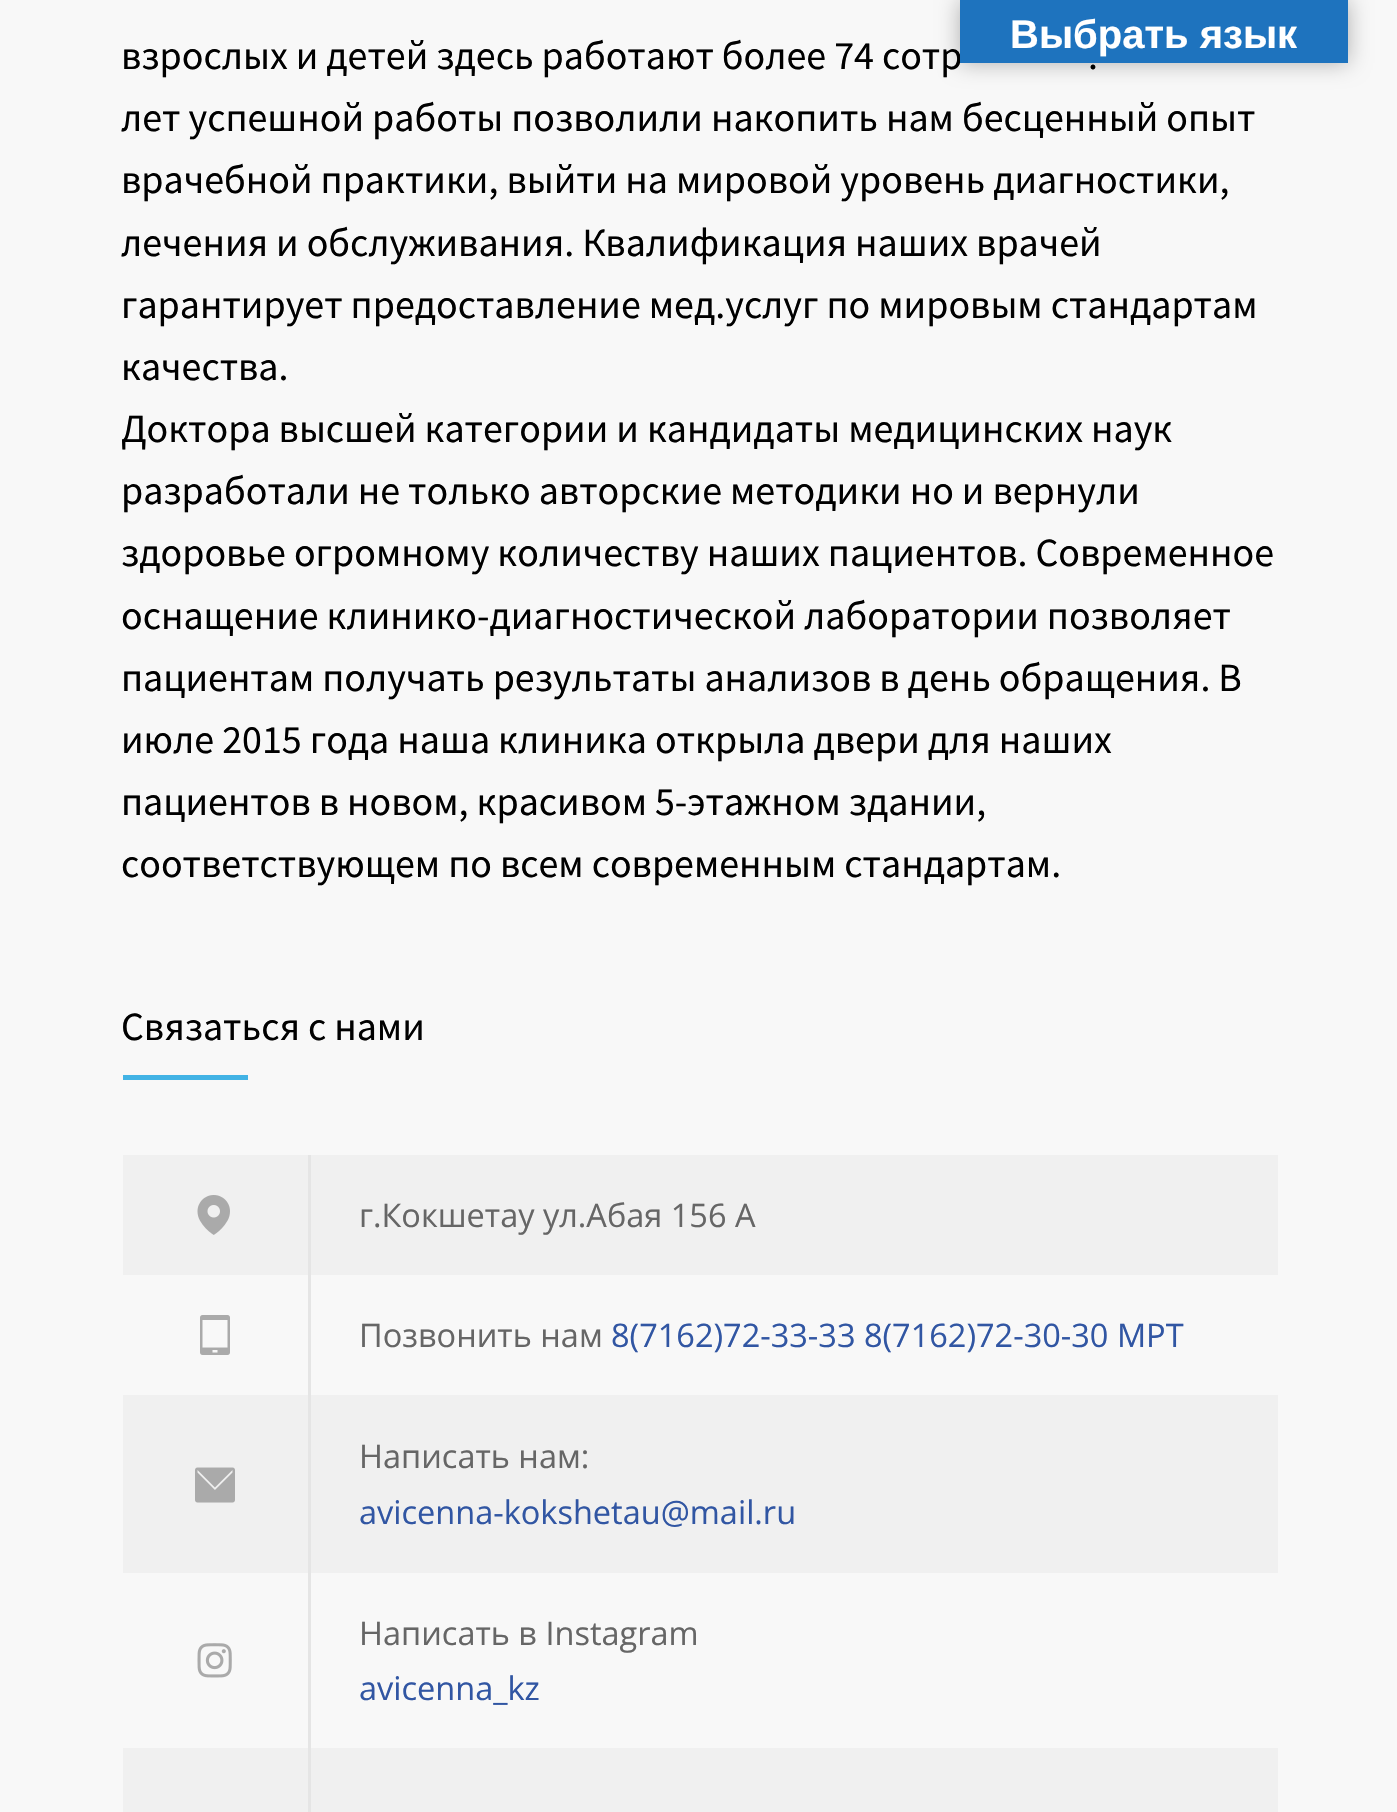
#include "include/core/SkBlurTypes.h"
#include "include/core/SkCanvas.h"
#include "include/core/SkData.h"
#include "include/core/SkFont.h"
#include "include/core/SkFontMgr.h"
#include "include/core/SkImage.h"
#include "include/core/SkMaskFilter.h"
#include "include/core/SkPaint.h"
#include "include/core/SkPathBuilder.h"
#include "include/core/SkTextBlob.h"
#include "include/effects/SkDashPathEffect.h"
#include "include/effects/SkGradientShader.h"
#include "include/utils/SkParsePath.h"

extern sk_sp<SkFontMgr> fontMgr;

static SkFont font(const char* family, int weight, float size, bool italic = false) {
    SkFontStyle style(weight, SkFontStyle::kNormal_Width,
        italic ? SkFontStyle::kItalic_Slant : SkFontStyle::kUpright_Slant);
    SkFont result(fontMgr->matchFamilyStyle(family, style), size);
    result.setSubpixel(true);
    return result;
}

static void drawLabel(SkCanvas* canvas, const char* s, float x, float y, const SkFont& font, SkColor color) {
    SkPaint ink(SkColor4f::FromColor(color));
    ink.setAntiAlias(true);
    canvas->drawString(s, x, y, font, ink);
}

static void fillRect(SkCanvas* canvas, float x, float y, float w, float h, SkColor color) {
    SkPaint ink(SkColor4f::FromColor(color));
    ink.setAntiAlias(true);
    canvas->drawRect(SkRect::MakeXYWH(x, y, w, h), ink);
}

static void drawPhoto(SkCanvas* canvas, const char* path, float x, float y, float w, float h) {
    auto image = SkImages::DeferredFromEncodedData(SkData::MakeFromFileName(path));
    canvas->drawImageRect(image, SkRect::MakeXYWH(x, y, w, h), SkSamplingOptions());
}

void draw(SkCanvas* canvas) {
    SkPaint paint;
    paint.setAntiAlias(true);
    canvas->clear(0xFFF8F8F8);
    paint.setColor(0x4D000000);
    paint.setMaskFilter(SkMaskFilter::MakeBlur(kNormal_SkBlurStyle, 11));
    canvas->drawRect(SkRect::MakeXYWH(960, 0, 388, 63), paint);
    paint.setMaskFilter(nullptr);
    SkFont font1 = font("Source Sans Pro", 400, 40);
    drawLabel(canvas, "взрослых и детей здесь работают более 74 сотр", 121, 69, font1, 0xFF000000);
    fillRect(canvas, 960, 0, 388, 63, 0xFF1E73BE);
    SkFont font2 = font("Liberation Sans", 700, 40);
    drawLabel(canvas, "Выбрать язык", 1010, 48, font2, 0xFFFFFFFF);
    drawLabel(canvas, ".", 1088, 69, font1, 0xFF000000);
    drawLabel(canvas, "лет успешной работы позволили накопить нам бесценный опыт", 121, 131, font1, 0xFF000000);
    drawLabel(canvas, "врачебной практики, выйти на мировой уровень диагностики,", 121, 193, font1, 0xFF000000);
    drawLabel(canvas, "лечения и обслуживания. Квалификация наших врачей", 121, 256, font1, 0xFF000000);
    drawLabel(canvas, "гарантирует предоставление мед.услуг по мировым стандартам", 121, 318, font1, 0xFF000000);
    drawLabel(canvas, "качества.", 121, 380, font1, 0xFF000000);
    drawLabel(canvas, "Доктора высшей категории и кандидаты медицинских наук", 121, 442, font1, 0xFF000000);
    drawLabel(canvas, "разработали не только авторские методики но и вернули", 121, 504, font1, 0xFF000000);
    drawLabel(canvas, "здоровье огромному количеству наших пациентов. Современное", 121, 566, font1, 0xFF000000);
    drawLabel(canvas, "оснащение клинико-диагностической лаборатории позволяет", 121, 629, font1, 0xFF000000);
    drawLabel(canvas, "пациентам получать результаты анализов в день обращения. В", 121, 691, font1, 0xFF000000);
    drawLabel(canvas, "июле 2015 года наша клиника открыла двери для наших", 121, 753, font1, 0xFF000000);
    drawLabel(canvas, "пациентов в новом, красивом 5-этажном здании,", 121, 815, font1, 0xFF000000);
    drawLabel(canvas, "соответствующем по всем современным стандартам.", 121, 877, font1, 0xFF000000);
    drawLabel(canvas, "Связаться с нами", 121, 1040, font1, 0xFF000000);
    fillRect(canvas, 123, 1075, 125, 5, 0xFF42B3E5);
    fillRect(canvas, 123, 1155, 1155, 120, 0xFFF0F0F0);
    fillRect(canvas, 308, 1155, 3, 240, 0xFFE5E5E5);
    drawPhoto(canvas, "assets/img1.png", 197, 1195, 33, 40);
    SkFont font3 = font("Open Sans", 400, 32.5f);
    drawLabel(canvas, "г.Кокшетау ул.Абая 156 А", 359, 1227, font3, 0xFF666666);
    drawPhoto(canvas, "assets/img2.png", 200, 1315, 30, 40);
    drawLabel(canvas, "Позвонить нам", 359, 1347, font3, 0xFF666666);
    drawLabel(canvas, "8(7162)72-33-33 8(7162)72-30-30 МРТ", 611, 1347, font3, 0xFF3156A3);
    fillRect(canvas, 123, 1395, 1155, 178, 0xFFF0F0F0);
    fillRect(canvas, 308, 1395, 3, 353, 0xFFE5E5E5);
    drawPhoto(canvas, "assets/img3.png", 195, 1467, 40, 36);
    drawLabel(canvas, "Написать нам:", 359, 1468, font3, 0xFF666666);
    drawLabel(canvas, "avicenna-kokshetau@mail.ru", 359, 1524, font3, 0xFF3156A3);
    drawPhoto(canvas, "assets/img4.png", 197, 1643, 35, 35);
    drawLabel(canvas, "Написать в Instagram", 359, 1645, font3, 0xFF666666);
    drawLabel(canvas, "avicenna_kz", 359, 1700, font3, 0xFF3156A3);
    fillRect(canvas, 123, 1748, 1155, 64, 0xFFF0F0F0);
    fillRect(canvas, 308, 1748, 3, 64, 0xFFE5E5E5);
}
